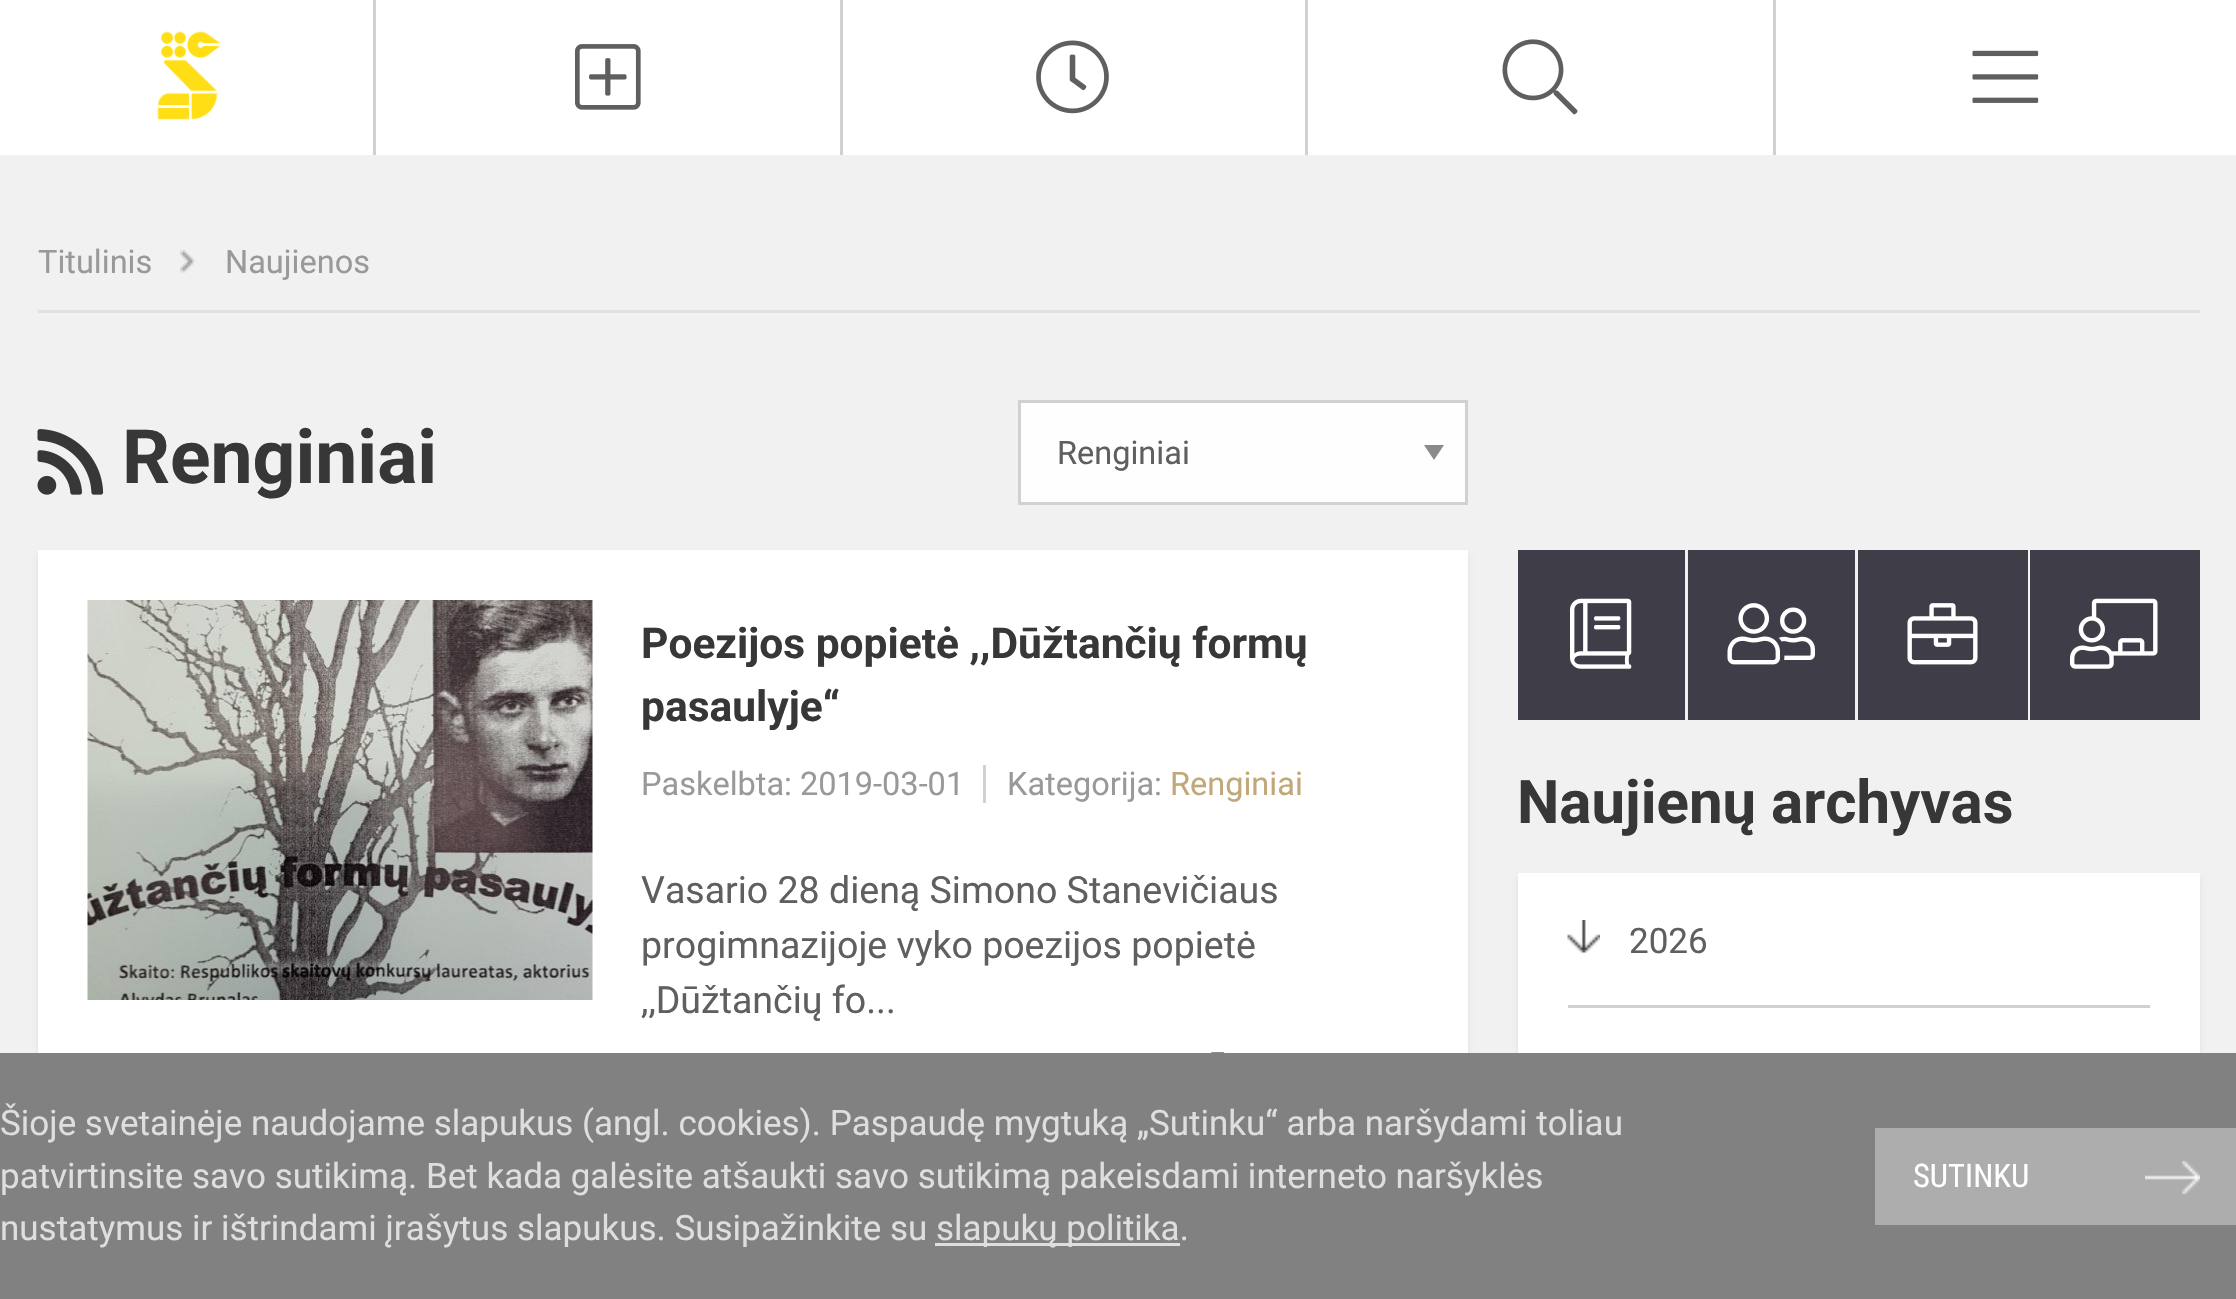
#include "include/core/SkBlurTypes.h"
#include "include/core/SkCanvas.h"
#include "include/core/SkData.h"
#include "include/core/SkFont.h"
#include "include/core/SkFontMgr.h"
#include "include/core/SkImage.h"
#include "include/core/SkMaskFilter.h"
#include "include/core/SkPaint.h"
#include "include/core/SkPathBuilder.h"
#include "include/core/SkTextBlob.h"
#include "include/effects/SkDashPathEffect.h"
#include "include/effects/SkGradientShader.h"
#include "include/utils/SkParsePath.h"

extern sk_sp<SkFontMgr> fontMgr;

static SkFont font(const char* family, int weight, float size, bool italic = false) {
    SkFontStyle style(weight, SkFontStyle::kNormal_Width,
        italic ? SkFontStyle::kItalic_Slant : SkFontStyle::kUpright_Slant);
    SkFont result(fontMgr->matchFamilyStyle(family, style), size);
    result.setSubpixel(true);
    return result;
}

static void drawLabel(SkCanvas* canvas, const char* s, float x, float y, const SkFont& font, SkColor color) {
    SkPaint ink(SkColor4f::FromColor(color));
    ink.setAntiAlias(true);
    canvas->drawString(s, x, y, font, ink);
}

static void fillRect(SkCanvas* canvas, float x, float y, float w, float h, SkColor color) {
    SkPaint ink(SkColor4f::FromColor(color));
    ink.setAntiAlias(true);
    canvas->drawRect(SkRect::MakeXYWH(x, y, w, h), ink);
}

static void drawPhoto(SkCanvas* canvas, const char* path, float x, float y, float w, float h) {
    auto image = SkImages::DeferredFromEncodedData(SkData::MakeFromFileName(path));
    canvas->drawImageRect(image, SkRect::MakeXYWH(x, y, w, h), SkSamplingOptions());
}

static SkPath parsePath(const char* data, bool evenOdd = false) {
    SkPath result = *SkParsePath::FromSVGString(data);
    if (evenOdd) result.setFillType(SkPathFillType::kEvenOdd);
    return result;
}

void draw(SkCanvas* canvas) {
    SkPaint paint;
    paint.setAntiAlias(true);
    canvas->clear(0xFFFFFFFF);
    drawPhoto(canvas, "assets/img1.png", 157, 31, 64, 89);
    fillRect(canvas, 373, 0, 3, 155, 0xFFD1D1D1);
    drawPhoto(canvas, "assets/img2.png", 575, 44, 66, 66);
    fillRect(canvas, 840, 0, 3, 155, 0xFFD1D1D1);
    drawPhoto(canvas, "assets/img3.png", 1036, 40, 73, 74);
    fillRect(canvas, 1305, 0, 3, 155, 0xFFD1D1D1);
    drawPhoto(canvas, "assets/img4.png", 1502, 39, 76, 76);
    fillRect(canvas, 1773, 0, 3, 155, 0xFFD1D1D1);
    drawPhoto(canvas, "assets/img5.png", 1972, 50, 67, 53);
    fillRect(canvas, 0, 155, 2236, 898, 0xFFF1F1F1);
    fillRect(canvas, 38, 310, 2162, 3, 0xFFE0E0E0);
    SkFont font1 = font("Roboto", 400, 32.5f);
    drawLabel(canvas, "Titulinis", 38, 273, font1, 0xFF999999);
    drawPhoto(canvas, "assets/img6.png", 180, 250, 15, 23);
    drawLabel(canvas, "Naujienos", 225, 273, font1, 0xFF999999);
    drawPhoto(canvas, "assets/img7.png", 37, 429, 67, 66);
    SkFont font2 = font("Roboto", 700, 75);
    drawLabel(canvas, "Renginiai", 122, 483, font2, 0xFF373737);
    fillRect(canvas, 1021, 403, 444, 99, 0xFFFEFEFE);
    paint.setColor(0xFF8A8A8A);
    canvas->drawPath(parsePath("M1424 445H1444L1434 460Z"), paint);
    paint.setStroke(true);
    paint.setStrokeWidth(3);
    paint.setColor(0xFFD1D1D1);
    canvas->drawRect(SkRect::MakeXYWH(1019.5f, 401.5f, 447, 102), paint);
    drawLabel(canvas, "Renginiai", 1057, 464, font1, 0xFF5F5F5F);
    paint.setStroke(false);
    paint.setColor(0xFFE0E0E0);
    paint.setMaskFilter(SkMaskFilter::MakeBlur(kNormal_SkBlurStyle, 2.5f));
    canvas->drawRect(SkRect::MakeXYWH(38, 555, 1430, 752), paint);
    paint.setMaskFilter(nullptr);
    fillRect(canvas, 38, 550, 1430, 503, 0xFFFFFFFF);
    drawPhoto(canvas, "assets/img8.png", 87, 600, 506, 400);
    SkFont font3 = font("Roboto", 700, 42.5f);
    drawLabel(canvas, "Poezijos popietė ,,Dūžtančių formų", 641, 658, font3, 0xFF373737);
    drawLabel(canvas, "pasaulyje“", 641, 721, font3, 0xFF373737);
    drawLabel(canvas, "Paskelbta: 2019-03-01", 641, 795, font1, 0xFF999999);
    fillRect(canvas, 983, 765, 3, 38, 0xFFD1D1D1);
    drawLabel(canvas, "Kategorija:", 1007, 795, font1, 0xFF999999);
    drawLabel(canvas, "Renginiai", 1170, 795, font1, 0xFFC1A879);
    SkFont font4 = font("Roboto", 400, 37.5f);
    drawLabel(canvas, "Vasario 28 dieną Simono Stanevičiaus", 641, 903, font4, 0xFF5F5F5F);
    drawLabel(canvas, "progimnazijoje vyko poezijos popietė", 641, 958, font4, 0xFF5F5F5F);
    drawLabel(canvas, ",,Dūžtančių fo...", 641, 1013, font4, 0xFF5F5F5F);
    drawPhoto(canvas, "assets/img9.png", 1211, 1052, 14, 1);
    fillRect(canvas, 1518, 550, 167, 170, 0xFF3F3D48);
    drawPhoto(canvas, "assets/img10.png", 1570, 598, 62, 71);
    fillRect(canvas, 1688, 550, 167, 170, 0xFF3F3D48);
    drawPhoto(canvas, "assets/img11.png", 1727, 603, 88, 62);
    fillRect(canvas, 1858, 550, 170, 170, 0xFF3F3D48);
    drawPhoto(canvas, "assets/img12.png", 1907, 603, 71, 62);
    fillRect(canvas, 2030, 550, 170, 170, 0xFF3F3D48);
    drawPhoto(canvas, "assets/img13.png", 2070, 598, 88, 71);
    SkFont font5 = font("Roboto", 700, 60);
    drawLabel(canvas, "Naujienų archyvas", 1517, 823, font5, 0xFF373737);
    paint.setMaskFilter(SkMaskFilter::MakeBlur(kNormal_SkBlurStyle, 2.5f));
    canvas->drawRect(SkRect::MakeXYWH(1518, 878, 682, 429), paint);
    paint.setMaskFilter(nullptr);
    fillRect(canvas, 1518, 873, 682, 180, 0xFFFFFFFF);
    drawPhoto(canvas, "assets/img14.png", 1567, 920, 33, 33);
    SkFont font6 = font("Roboto", 400, 35);
    drawLabel(canvas, "2026", 1629, 953, font6, 0xFF5F5F5F);
    fillRect(canvas, 1568, 1005, 582, 3, 0xFFD1D1D1);
    fillRect(canvas, 0, 1053, 2236, 246, 0xFF818181);
    drawLabel(canvas, "Šioje svetainėje naudojame slapukus (angl. cookies). Paspaudę mygtuką „Sutinku“ arba naršydami toliau", 0, 1135, font6, 0xFFDEDEDE);
    drawLabel(canvas, "patvirtinsite savo sutikimą. Bet kada galėsite atšaukti savo sutikimą pakeisdami interneto naršyklės", 0, 1188, font6, 0xFFDEDEDE);
    drawLabel(canvas, "nustatymus ir ištrindami įrašytus slapukus. Susipažinkite su", 0, 1240, font6, 0xFFDEDEDE);
    fillRect(canvas, 935, 1243, 245, 3, 0xFFDEDEDE);
    drawLabel(canvas, "slapukų politika.", 936, 1240, font6, 0xFFDEDEDE);
    fillRect(canvas, 1875, 1128, 361, 97, 0xFFADADAD);
    SkFont font7 = font("Roboto Condensed", 400, 32.5f);
    drawLabel(canvas, "SUTINKU", 1913, 1187, font7, 0xFFFFFFFF);
    drawPhoto(canvas, "assets/img15.png", 2145, 1160, 55, 35);
}
